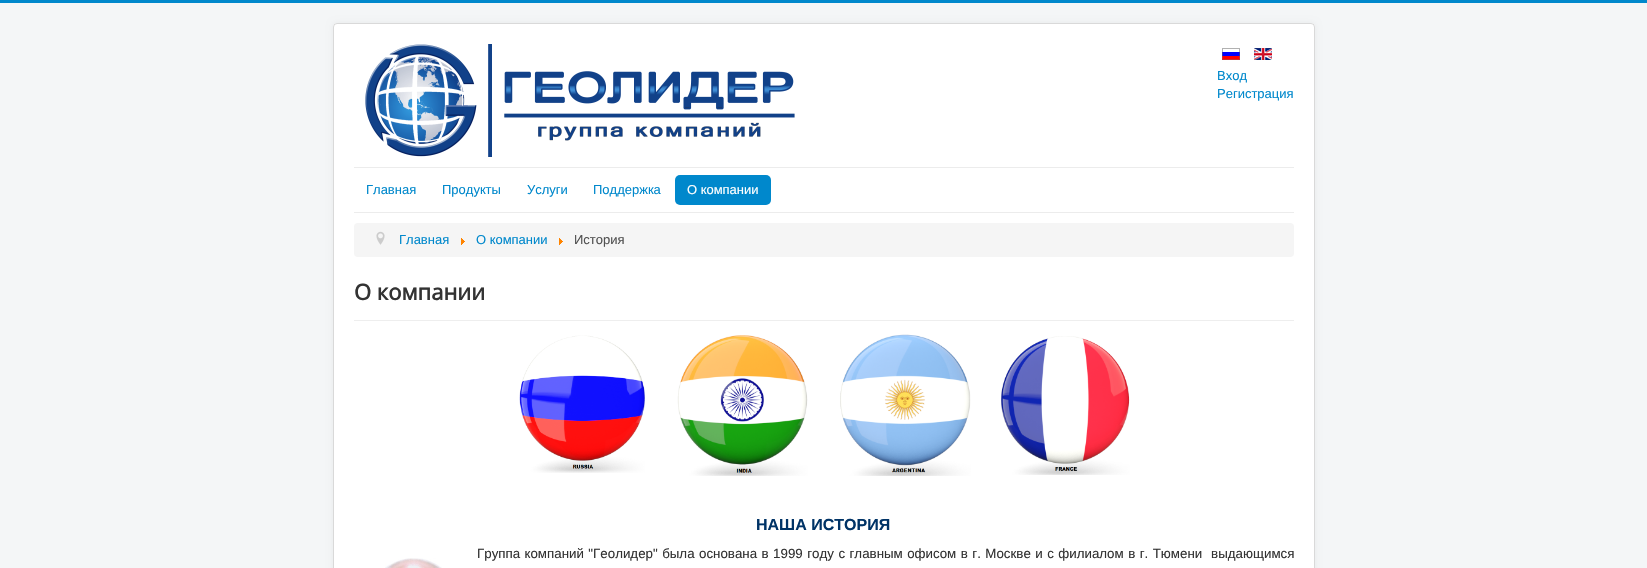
#include "include/core/SkBlurTypes.h"
#include "include/core/SkCanvas.h"
#include "include/core/SkData.h"
#include "include/core/SkFont.h"
#include "include/core/SkFontMgr.h"
#include "include/core/SkImage.h"
#include "include/core/SkMaskFilter.h"
#include "include/core/SkPaint.h"
#include "include/core/SkPathBuilder.h"
#include "include/core/SkTextBlob.h"
#include "include/effects/SkDashPathEffect.h"
#include "include/effects/SkGradientShader.h"
#include "include/utils/SkParsePath.h"

extern sk_sp<SkFontMgr> fontMgr;

static SkFont font(const char* family, int weight, float size, bool italic = false) {
    SkFontStyle style(weight, SkFontStyle::kNormal_Width,
        italic ? SkFontStyle::kItalic_Slant : SkFontStyle::kUpright_Slant);
    SkFont result(fontMgr->matchFamilyStyle(family, style), size);
    result.setSubpixel(true);
    return result;
}

static void drawLabel(SkCanvas* canvas, const char* s, float x, float y, const SkFont& font, SkColor color) {
    SkPaint ink(SkColor4f::FromColor(color));
    ink.setAntiAlias(true);
    canvas->drawString(s, x, y, font, ink);
}

static void drawTracked(SkCanvas* canvas, const char* s, float x, float y, const SkFont& font, const SkPaint& ink, float letter, float word) {
    std::vector<SkGlyphID> glyphs(font.countText(s, strlen(s), SkTextEncoding::kUTF8));
    std::vector<float> xs(glyphs.size());
    font.textToGlyphs(s, strlen(s), SkTextEncoding::kUTF8, glyphs);
    font.getXPos(glyphs, xs, x);
    float extra = 0;
    for (size_t i = 0; i < glyphs.size(); i++) {
        xs[i] += extra;
        extra += letter + word * (glyphs[i] == font.unicharToGlyph(' '));
    }
    canvas->drawTextBlob(SkTextBlob::MakeFromPosHGlyphs(glyphs, xs, y, font), 0, 0, ink);
}

static void fillRect(SkCanvas* canvas, float x, float y, float w, float h, SkColor color) {
    SkPaint ink(SkColor4f::FromColor(color));
    ink.setAntiAlias(true);
    canvas->drawRect(SkRect::MakeXYWH(x, y, w, h), ink);
}

static void fillRRect(SkCanvas* canvas, float x, float y, float w, float h, float radius, SkColor color) {
    SkPaint ink(SkColor4f::FromColor(color));
    ink.setAntiAlias(true);
    canvas->drawRoundRect(SkRect::MakeXYWH(x, y, w, h), radius, radius, ink);
}

static void drawPhoto(SkCanvas* canvas, const char* path, float x, float y, float w, float h) {
    auto image = SkImages::DeferredFromEncodedData(SkData::MakeFromFileName(path));
    canvas->drawImageRect(image, SkRect::MakeXYWH(x, y, w, h), SkSamplingOptions());
}

void draw(SkCanvas* canvas) {
    SkPaint paint;
    paint.setAntiAlias(true);
    canvas->clear(0xFFF4F6F7);
    fillRect(canvas, 0, 0, 1647, 3, 0xFF0088CC);
    paint.setColor(0x0D000000);
    paint.setMaskFilter(SkMaskFilter::MakeBlur(kNormal_SkBlurStyle, 3));
    canvas->drawRoundRect(SkRect::MakeXYWH(333, 23, 982, 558), 4, 4, paint);
    paint.setMaskFilter(nullptr);
    fillRRect(canvas, 333, 23, 982, 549, 4, 0xFFFFFFFF);
    paint.setStroke(true);
    paint.setStrokeWidth(1);
    paint.setColor(0x26000000);
    canvas->drawRoundRect(SkRect::MakeXYWH(333.5f, 23.5f, 981, 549), 3.5f, 3.5f, paint);
    drawPhoto(canvas, "assets/img1.png", 365, 44, 430, 113);
    drawPhoto(canvas, "assets/img2.png", 1222, 48, 18, 12);
    drawPhoto(canvas, "assets/img3.png", 1254, 48, 18, 12);
    SkFont font1 = font("Liberation Sans", 400, 13);
    drawLabel(canvas, "Вход", 1217, 80, font1, 0xFF0088CC);
    drawLabel(canvas, "Регистрация", 1217, 98, font1, 0xFF0088CC);
    fillRect(canvas, 354, 167, 940, 1, 0xFFECECEC);
    fillRect(canvas, 354, 212, 940, 1, 0xFFECECEC);
    drawLabel(canvas, "Главная", 366, 194, font1, 0xFF0088CC);
    drawLabel(canvas, "Продукты", 442, 194, font1, 0xFF0088CC);
    drawLabel(canvas, "Услуги", 527, 194, font1, 0xFF0088CC);
    drawLabel(canvas, "Поддержка", 593, 194, font1, 0xFF0088CC);
    fillRRect(canvas, 675, 175, 96, 30, 5, 0xFF0088CC);
    drawLabel(canvas, "О компании", 687, 194, font1, 0xFFFFFFFF);
    fillRRect(canvas, 354, 223, 940, 34, 4, 0xFFF5F5F5);
    drawPhoto(canvas, "assets/img4.png", 376, 231, 9, 14);
    drawLabel(canvas, "Главная", 399, 244, font1, 0xFF0088CC);
    drawPhoto(canvas, "assets/img5.png", 461, 238, 4, 7);
    drawLabel(canvas, "О компании", 476, 244, font1, 0xFF0088CC);
    drawPhoto(canvas, "assets/img5.png", 559, 238, 4, 7);
    drawLabel(canvas, "История", 574, 244, font1, 0xFF515151);
    fillRect(canvas, 354, 320, 940, 1, 0xFFEEEEEE);
    SkFont font2 = font("Open Sans", 700, 22);
    drawLabel(canvas, "О компании", 354, 300, font2, 0xFF333333);
    drawPhoto(canvas, "assets/img6.png", 519, 335, 126, 138);
    drawPhoto(canvas, "assets/img7.png", 677, 335, 131, 141);
    drawPhoto(canvas, "assets/img8.png", 840, 334, 131, 142);
    drawPhoto(canvas, "assets/img9.png", 1001, 336, 129, 139);
    SkFont font3 = font("Liberation Sans", 700, 16);
    drawLabel(canvas, "НАША ИСТОРИЯ", 756, 530, font3, 0xFF003366);
    SkFont font4 = font("Liberation Sans", 400, 13.33f);
    paint.setStroke(false);
    paint.setColor(0xFF333333);
    drawTracked(canvas, "Группа компаний \"Геолидер\" была основана в 1999 году с главным офисом в г. Москве и с филиалом в г. Тюмени  выдающимся", 477, 558, font4, paint, 0, 0.75f);
    drawPhoto(canvas, "assets/img10.png", 385, 558, 57, 10);
}
